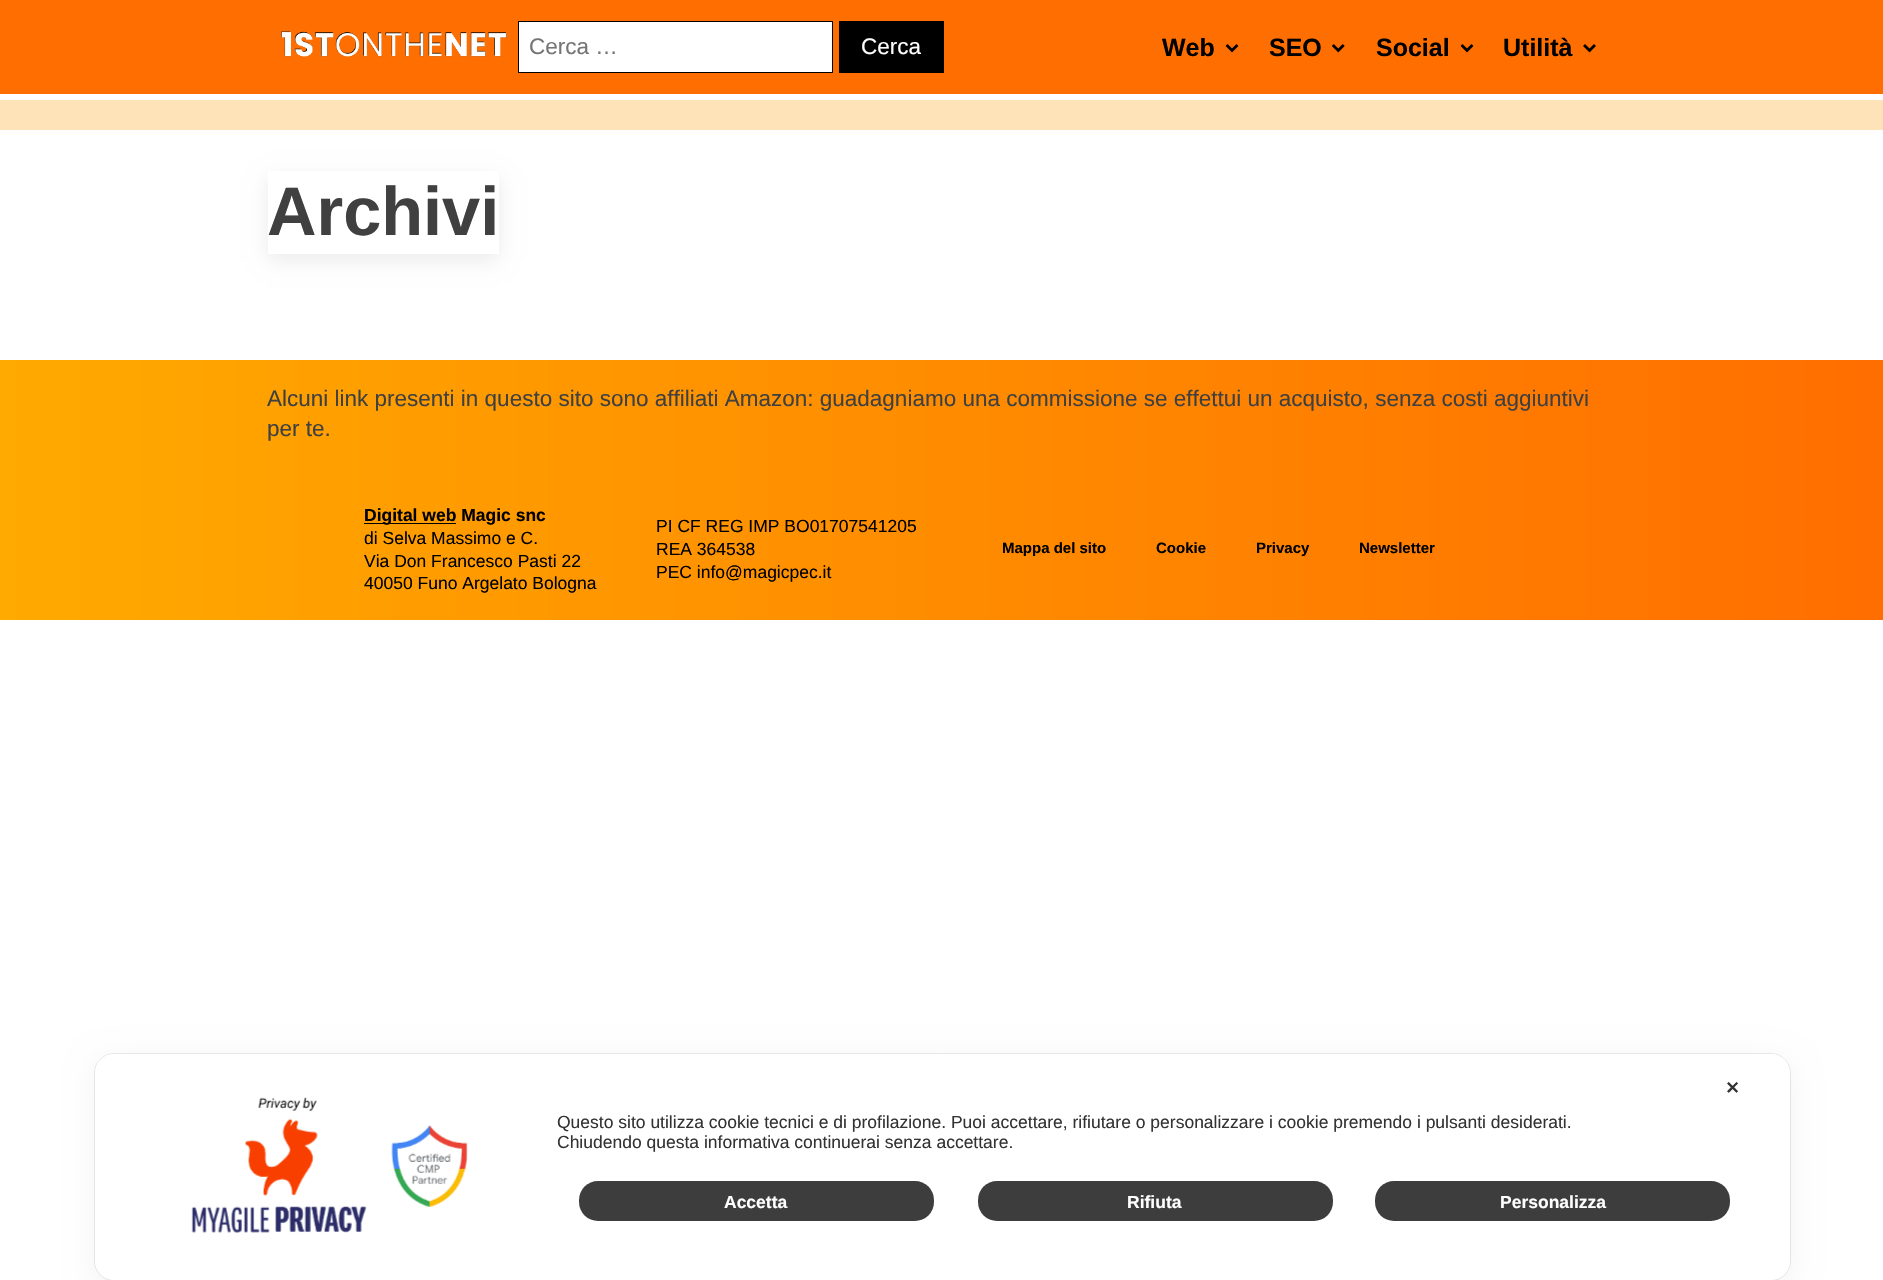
#include "include/core/SkBlurTypes.h"
#include "include/core/SkCanvas.h"
#include "include/core/SkData.h"
#include "include/core/SkFont.h"
#include "include/core/SkFontMgr.h"
#include "include/core/SkImage.h"
#include "include/core/SkMaskFilter.h"
#include "include/core/SkPaint.h"
#include "include/core/SkPathBuilder.h"
#include "include/core/SkTextBlob.h"
#include "include/effects/SkDashPathEffect.h"
#include "include/effects/SkGradientShader.h"
#include "include/utils/SkParsePath.h"

extern sk_sp<SkFontMgr> fontMgr;

static SkFont font(const char* family, int weight, float size, bool italic = false) {
    SkFontStyle style(weight, SkFontStyle::kNormal_Width,
        italic ? SkFontStyle::kItalic_Slant : SkFontStyle::kUpright_Slant);
    SkFont result(fontMgr->matchFamilyStyle(family, style), size);
    result.setSubpixel(true);
    return result;
}

static void drawLabel(SkCanvas* canvas, const char* s, float x, float y, const SkFont& font, SkColor color) {
    SkPaint ink(SkColor4f::FromColor(color));
    ink.setAntiAlias(true);
    canvas->drawString(s, x, y, font, ink);
}

static void fillRect(SkCanvas* canvas, float x, float y, float w, float h, SkColor color) {
    SkPaint ink(SkColor4f::FromColor(color));
    ink.setAntiAlias(true);
    canvas->drawRect(SkRect::MakeXYWH(x, y, w, h), ink);
}

static void fillRRect(SkCanvas* canvas, float x, float y, float w, float h, float radius, SkColor color) {
    SkPaint ink(SkColor4f::FromColor(color));
    ink.setAntiAlias(true);
    canvas->drawRoundRect(SkRect::MakeXYWH(x, y, w, h), radius, radius, ink);
}

static void drawPhoto(SkCanvas* canvas, const char* path, float x, float y, float w, float h) {
    auto image = SkImages::DeferredFromEncodedData(SkData::MakeFromFileName(path));
    canvas->drawImageRect(image, SkRect::MakeXYWH(x, y, w, h), SkSamplingOptions());
}

static SkPath parsePath(const char* data, bool evenOdd = false) {
    SkPath result = *SkParsePath::FromSVGString(data);
    if (evenOdd) result.setFillType(SkPathFillType::kEvenOdd);
    return result;
}

void draw(SkCanvas* canvas) {
    SkPaint paint;
    paint.setAntiAlias(true);
    canvas->clear(0xFFFFFFFF);
    fillRect(canvas, 0, 0, 1883, 94, 0xFFFF6E00);
    drawPhoto(canvas, "assets/img1.png", 281, 31, 226, 26);
    paint.setColor(0xFFFFFFFF);
    canvas->drawRect(SkRect::MakeXYWH(518.5f, 21.5f, 314, 51), paint);
    paint.setStroke(true);
    paint.setStrokeWidth(1);
    paint.setColor(0xFF000000);
    canvas->drawRect(SkRect::MakeXYWH(518.5f, 21.5f, 314, 51), paint);
    SkFont font1 = font("Liberation Sans", 400, 22.5f);
    drawLabel(canvas, "Cerca …", 529, 54, font1, 0xFF757575);
    fillRect(canvas, 839, 21, 105, 52, 0xFF000000);
    drawLabel(canvas, "Cerca", 861, 54, font1, 0xFFFFFFFF);
    SkFont font2 = font("Liberation Sans", 700, 25);
    drawLabel(canvas, "Web", 1162, 56, font2, 0xFF000000);
    drawPhoto(canvas, "assets/img2.png", 1225, 44, 14, 9);
    drawLabel(canvas, "SEO", 1269, 56, font2, 0xFF000000);
    drawPhoto(canvas, "assets/img3.png", 1332, 44, 13, 9);
    drawLabel(canvas, "Social", 1376, 56, font2, 0xFF000000);
    drawPhoto(canvas, "assets/img2.png", 1460, 44, 14, 9);
    drawLabel(canvas, "Utilità", 1503, 56, font2, 0xFF000000);
    drawPhoto(canvas, "assets/img4.png", 1583, 44, 13, 9);
    fillRect(canvas, 0, 100, 1883, 30, 0xFFFEE2B8);
    canvas->save();
    canvas->clipPath(parsePath("M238 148H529V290H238ZM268 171H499V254H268Z", true), true);
    paint.setStroke(false);
    paint.setColor(0x14000000);
    paint.setMaskFilter(SkMaskFilter::MakeBlur(kNormal_SkBlurStyle, 9.5f));
    canvas->drawRect(SkRect::MakeXYWH(268, 178, 231, 82), paint);
    paint.setMaskFilter(nullptr);
    canvas->restore();
    SkFont font3 = font("Liberation Sans", 700, 68.5f);
    drawLabel(canvas, "Archivi", 267, 235, font3, 0xFF404040);
    {
        const SkColor colors[] = {0xFFFFAA00, 0xFFFF6E00};
        const float stops[] = {0, 1};
        const SkPoint ends[] = {{0, 490}, {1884, 490}};
        paint.setShader(SkGradientShader::MakeLinear(ends, colors, stops, 2, SkTileMode::kClamp));
        paint.setAlpha(255);
    }
    canvas->drawRect(SkRect::MakeXYWH(0, 360, 1883, 260), paint);
    drawLabel(canvas, "Alcuni link presenti in questo sito sono affiliati Amazon: guadagniamo una commissione se effettui un acquisto, senza costi aggiuntivi", 267, 406, font1, 0xFF404040);
    drawLabel(canvas, "per te.", 267, 436, font1, 0xFF404040);
    fillRect(canvas, 364, 523, 92, 1, 0xFF000000);
    SkFont font4 = font("Liberation Sans", 700, 17.5f);
    drawLabel(canvas, "Digital web Magic snc", 364, 521, font4, 0xFF000000);
    SkFont font5 = font("Liberation Sans", 400, 17.5f);
    drawLabel(canvas, "di Selva Massimo e C.", 364, 544, font5, 0xFF000000);
    drawLabel(canvas, "Via Don Francesco Pasti 22", 364, 567, font5, 0xFF000000);
    drawLabel(canvas, "40050 Funo Argelato Bologna", 364, 589, font5, 0xFF000000);
    drawLabel(canvas, "PI CF REG IMP BO01707541205", 656, 532, font5, 0xFF000000);
    drawLabel(canvas, "REA 364538", 656, 555, font5, 0xFF000000);
    drawLabel(canvas, "PEC info@magicpec.it", 656, 578, font5, 0xFF000000);
    SkFont font6 = font("Liberation Sans", 700, 15);
    drawLabel(canvas, "Mappa del sito", 1002, 553, font6, 0xFF000000);
    drawLabel(canvas, "Cookie", 1156, 553, font6, 0xFF000000);
    drawLabel(canvas, "Privacy", 1256, 553, font6, 0xFF000000);
    drawLabel(canvas, "Newsletter", 1359, 553, font6, 0xFF000000);
    paint.setStroke(true);
    paint.setShader(nullptr);
    paint.setColor(0xFFEBEBEB);
    canvas->drawRoundRect(SkRect::MakeXYWH(94.5f, 1053.5f, 1696, 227), 19.5f, 19.5f, paint);
    paint.setStroke(false);
    paint.setColor(0x0D000000);
    paint.setMaskFilter(SkMaskFilter::MakeBlur(kNormal_SkBlurStyle, 15));
    canvas->drawRoundRect(SkRect::MakeXYWH(95, 1061, 1695, 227), 19, 19, paint);
    paint.setMaskFilter(nullptr);
    fillRRect(canvas, 95, 1054, 1695, 226, 19, 0xFFFFFFFF);
    SkFont font7 = font("DejaVu Sans", 700, 17.5f);
    drawLabel(canvas, "✕", 1725, 1094, font7, 0xFF333333);
    drawPhoto(canvas, "assets/img5.png", 191, 1097, 277, 136);
    drawLabel(canvas, "Questo sito utilizza cookie tecnici e di profilazione. Puoi accettare, rifiutare o personalizzare i cookie premendo i pulsanti desiderati.", 557, 1128, font5, 0xFF333333);
    drawLabel(canvas, "Chiudendo questa informativa continuerai senza accettare.", 557, 1148, font5, 0xFF333333);
    fillRRect(canvas, 579, 1181, 355, 40, 19, 0xFF3D3D3D);
    drawLabel(canvas, "Accetta", 724, 1208, font4, 0xFFFFFFFF);
    fillRRect(canvas, 978, 1181, 355, 40, 19, 0xFF3D3D3D);
    drawLabel(canvas, "Rifiuta", 1127, 1208, font4, 0xFFFFFFFF);
    fillRRect(canvas, 1375, 1181, 355, 40, 19, 0xFF3D3D3D);
    drawLabel(canvas, "Personalizza", 1500, 1208, font4, 0xFFFFFFFF);
}
